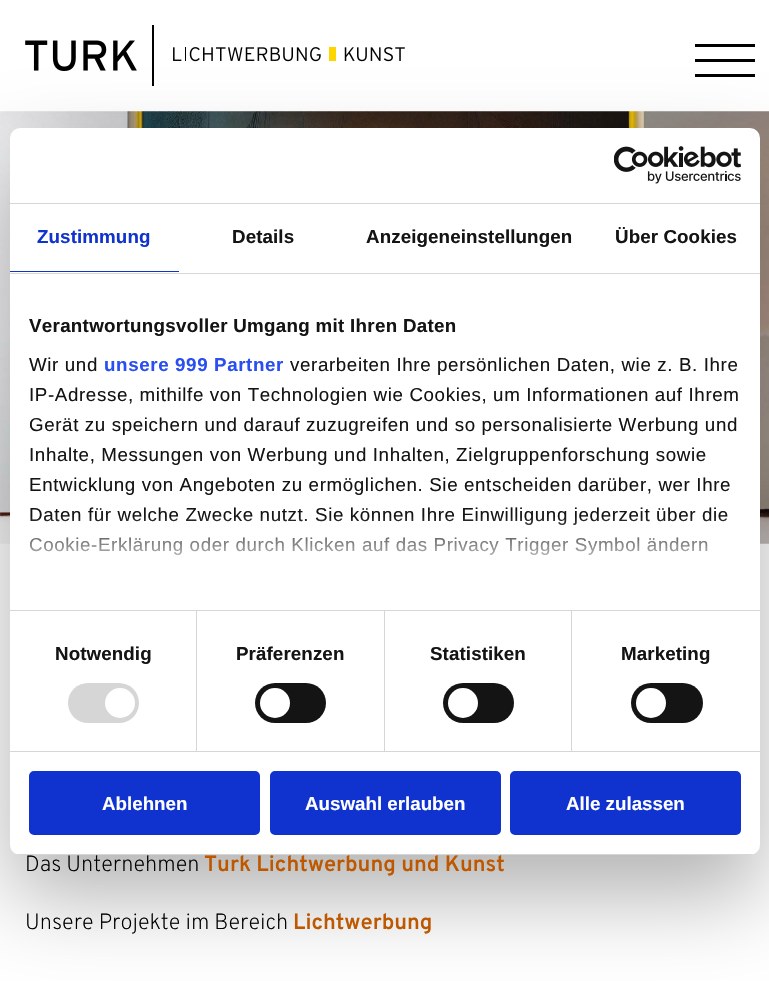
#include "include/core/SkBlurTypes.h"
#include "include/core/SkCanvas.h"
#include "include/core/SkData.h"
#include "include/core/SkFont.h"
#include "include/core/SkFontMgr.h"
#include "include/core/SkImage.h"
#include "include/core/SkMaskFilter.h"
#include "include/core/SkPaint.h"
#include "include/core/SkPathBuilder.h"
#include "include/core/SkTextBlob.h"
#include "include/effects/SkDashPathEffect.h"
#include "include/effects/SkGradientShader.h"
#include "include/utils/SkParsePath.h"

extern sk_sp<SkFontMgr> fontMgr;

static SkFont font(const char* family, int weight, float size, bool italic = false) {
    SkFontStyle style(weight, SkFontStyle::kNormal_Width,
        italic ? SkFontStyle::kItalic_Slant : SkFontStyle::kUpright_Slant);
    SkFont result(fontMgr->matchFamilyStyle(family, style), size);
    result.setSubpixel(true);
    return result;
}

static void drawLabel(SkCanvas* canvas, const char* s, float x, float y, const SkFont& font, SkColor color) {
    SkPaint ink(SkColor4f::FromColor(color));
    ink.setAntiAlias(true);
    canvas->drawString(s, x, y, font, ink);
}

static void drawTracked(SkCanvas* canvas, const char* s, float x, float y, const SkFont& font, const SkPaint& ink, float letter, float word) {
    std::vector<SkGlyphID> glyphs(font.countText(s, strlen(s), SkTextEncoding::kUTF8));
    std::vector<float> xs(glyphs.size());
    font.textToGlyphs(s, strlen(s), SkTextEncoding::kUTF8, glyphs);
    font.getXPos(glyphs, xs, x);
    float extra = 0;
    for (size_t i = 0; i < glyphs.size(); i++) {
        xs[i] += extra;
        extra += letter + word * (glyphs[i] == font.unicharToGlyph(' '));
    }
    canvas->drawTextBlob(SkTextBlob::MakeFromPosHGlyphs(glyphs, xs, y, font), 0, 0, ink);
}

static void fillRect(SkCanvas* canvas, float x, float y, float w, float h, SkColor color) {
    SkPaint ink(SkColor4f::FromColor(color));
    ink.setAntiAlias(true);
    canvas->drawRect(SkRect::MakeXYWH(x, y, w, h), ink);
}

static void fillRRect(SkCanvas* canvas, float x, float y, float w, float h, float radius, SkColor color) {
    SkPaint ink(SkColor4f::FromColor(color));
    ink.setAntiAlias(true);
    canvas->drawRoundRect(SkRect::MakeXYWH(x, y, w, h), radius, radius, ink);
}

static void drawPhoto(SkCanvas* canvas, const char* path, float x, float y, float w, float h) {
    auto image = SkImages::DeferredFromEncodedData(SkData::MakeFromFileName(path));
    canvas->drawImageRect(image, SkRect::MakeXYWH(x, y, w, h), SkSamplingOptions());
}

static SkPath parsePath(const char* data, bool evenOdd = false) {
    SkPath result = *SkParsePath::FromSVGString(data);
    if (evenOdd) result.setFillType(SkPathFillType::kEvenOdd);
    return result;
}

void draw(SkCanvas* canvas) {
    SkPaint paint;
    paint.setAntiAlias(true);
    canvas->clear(0xFFFFFFFF);
    drawPhoto(canvas, "assets/img2.png", 25, 25, 380, 61);
    fillRect(canvas, 695, 44, 60, 3, 0xFF000000);
    fillRect(canvas, 695, 59, 60, 3, 0xFF000000);
    fillRect(canvas, 695, 74, 60, 3, 0xFF000000);
    drawPhoto(canvas, "assets/img3.png", 0, 111, 769, 433);
    paint.setColor(0x4D000000);
    paint.setMaskFilter(SkMaskFilter::MakeBlur(kNormal_SkBlurStyle, 42.5f));
    canvas->drawRoundRect(SkRect::MakeXYWH(10, 168, 750, 727), 10, 10, paint);
    paint.setMaskFilter(nullptr);
    fillRRect(canvas, 10, 128, 750, 727, 10, 0xFFFFFFFF);
    fillRect(canvas, 10, 203, 750, 1, 0xFFD6D6D6);
    drawPhoto(canvas, "assets/img1.png", 614, 146, 127, 38);
    fillRect(canvas, 10, 273, 750, 1, 0xFFD6D6D6);
    fillRect(canvas, 10, 271, 169, 1, 0xFF1032CF);
    SkFont font1 = font("Liberation Sans", 700, 18.75f);
    paint.setColor(0xFF1032CF);
    drawTracked(canvas, "Zustimmung", 37, 243, font1, paint, 0.1f, 0);
    paint.setColor(0xFF141414);
    drawTracked(canvas, "Details", 232, 243, font1, paint, 0.1f, 0);
    drawTracked(canvas, "Anzeigeneinstellungen", 366, 243, font1, paint, 0.1f, 0);
    drawTracked(canvas, "Über Cookies", 615, 243, font1, paint, 0.1f, 0);
    fillRect(canvas, 10, 610, 750, 1, 0xFFD6D6D6);
    drawTracked(canvas, "Verantwortungsvoller Umgang mit Ihren Daten", 29, 332, font1, paint, 0.3f, 0);
    SkFont font2 = font("Liberation Sans", 400, 18.75f);
    drawTracked(canvas, "Wir und", 29, 371, font2, paint, 0.62f, 0);
    paint.setColor(0xFF2A4EEF);
    drawTracked(canvas, "unsere 999 Partner", 104, 371, font1, paint, 0.62f, 0);
    paint.setColor(0xFF141414);
    drawTracked(canvas, "verarbeiten Ihre persönlichen Daten, wie z. B. Ihre", 290, 371, font2, paint, 0.62f, 0);
    drawTracked(canvas, "IP-Adresse, mithilfe von Technologien wie Cookies, um Informationen auf Ihrem", 29, 401, font2, paint, 0.62f, 0);
    drawTracked(canvas, "Gerät zu speichern und darauf zuzugreifen und so personalisierte Werbung und", 29, 431, font2, paint, 0.62f, 0);
    drawTracked(canvas, "Inhalte, Messungen von Werbung und Inhalten, Zielgruppenforschung sowie", 29, 461, font2, paint, 0.62f, 0);
    drawTracked(canvas, "Entwicklung von Angeboten zu ermöglichen. Sie entscheiden darüber, wer Ihre", 29, 491, font2, paint, 0.62f, 0);
    drawTracked(canvas, "Daten für welche Zwecke nutzt. Sie können Ihre Einwilligung jederzeit über die", 29, 521, font2, paint, 0.62f, 0);
    drawTracked(canvas, "Cookie-Erklärung oder durch Klicken auf das Privacy Trigger Symbol ändern", 29, 551, font2, paint, 0.62f, 0);
    {
        const SkColor colors[] = {0xFFFFFFFF, 0xCCFFFFFF, 0x00FFFFFF};
        const float stops[] = {0, 0.5f, 1};
        const SkPoint ends[] = {{377, 610}, {377, 516}};
        paint.setShader(SkGradientShader::MakeLinear(ends, colors, stops, 3, SkTileMode::kClamp));
        paint.setAlpha(255);
    }
    canvas->drawRect(SkRect::MakeXYWH(29, 517, 698, 38), paint);
    fillRect(canvas, 10, 751, 750, 1, 0xFFD6D6D6);
    fillRect(canvas, 196, 611, 1, 140, 0xFFD6D6D6);
    paint.setShader(nullptr);
    paint.setColor(0xFF141414);
    drawTracked(canvas, "Notwendig", 55, 660, font1, paint, 0.1f, 0);
    fillRRect(canvas, 68, 683, 71, 40, 20, 0xFFD6D6D6);
    paint.setColor(0xFFFFFFFF);
    canvas->drawCircle(120, 703, 15, paint);
    fillRect(canvas, 384, 611, 1, 140, 0xFFD6D6D6);
    paint.setColor(0xFF141414);
    drawTracked(canvas, "Präferenzen", 236, 660, font1, paint, 0.1f, 0);
    fillRRect(canvas, 255, 683, 71, 40, 20, 0xFF141414);
    paint.setColor(0xFFFFFFFF);
    canvas->drawCircle(275, 703, 15, paint);
    fillRect(canvas, 571, 611, 1, 140, 0xFFD6D6D6);
    paint.setColor(0xFF141414);
    drawTracked(canvas, "Statistiken", 430, 660, font1, paint, 0.1f, 0);
    fillRRect(canvas, 443, 683, 71, 40, 20, 0xFF141414);
    paint.setColor(0xFFFFFFFF);
    canvas->drawCircle(463, 703, 15, paint);
    paint.setColor(0xFF141414);
    drawTracked(canvas, "Marketing", 621, 660, font1, paint, 0.1f, 0);
    fillRRect(canvas, 631, 683, 72, 40, 20, 0xFF141414);
    paint.setColor(0xFFFFFFFF);
    canvas->drawCircle(651, 703, 15, paint);
    canvas->save();
    canvas->clipPath(parsePath("M20 128H750C755.5 128 760 132.5 760 138V845C760 850.5 755.5 855 750 855H20C14.5 855 10 850.5 10 845V138C10 132.5 14.5 128 20 128Z"), true);
    fillRect(canvas, 10, 854, 750, 1, 0xFFD6D6D6);
    canvas->restore();
    paint.setColor(0xFF1032CF);
    canvas->drawRoundRect(SkRect::MakeXYWH(30.5f, 772.5f, 228, 61), 3.5f, 3.5f, paint);
    paint.setStroke(true);
    paint.setStrokeWidth(3);
    canvas->drawRoundRect(SkRect::MakeXYWH(30.5f, 772.5f, 228, 61), 3.5f, 3.5f, paint);
    drawLabel(canvas, "Ablehnen", 102, 810, font1, 0xFFFFFFFF);
    paint.setStroke(false);
    canvas->drawRoundRect(SkRect::MakeXYWH(271.5f, 772.5f, 228, 61), 3.5f, 3.5f, paint);
    paint.setStroke(true);
    canvas->drawRoundRect(SkRect::MakeXYWH(271.5f, 772.5f, 228, 61), 3.5f, 3.5f, paint);
    drawLabel(canvas, "Auswahl erlauben", 305, 810, font1, 0xFFFFFFFF);
    paint.setStroke(false);
    canvas->drawRoundRect(SkRect::MakeXYWH(511.5f, 772.5f, 228, 61), 3.5f, 3.5f, paint);
    paint.setStroke(true);
    canvas->drawRoundRect(SkRect::MakeXYWH(511.5f, 772.5f, 228, 61), 3.5f, 3.5f, paint);
    drawLabel(canvas, "Alle zulassen", 566, 810, font1, 0xFFFFFFFF);
    SkFont font3 = font("Overpass", 200, 22);
    drawLabel(canvas, "Das Unternehmen", 25, 871, font3, 0xFF000000);
    SkFont font4 = font("Overpass", 600, 22);
    drawLabel(canvas, "Turk Lichtwerbung und Kunst", 204, 871, font4, 0xFFBD5800);
    drawLabel(canvas, "Unsere Projekte im Bereich", 25, 929, font3, 0xFF000000);
    drawLabel(canvas, "Lichtwerbung", 293, 929, font4, 0xFFBD5800);
}
